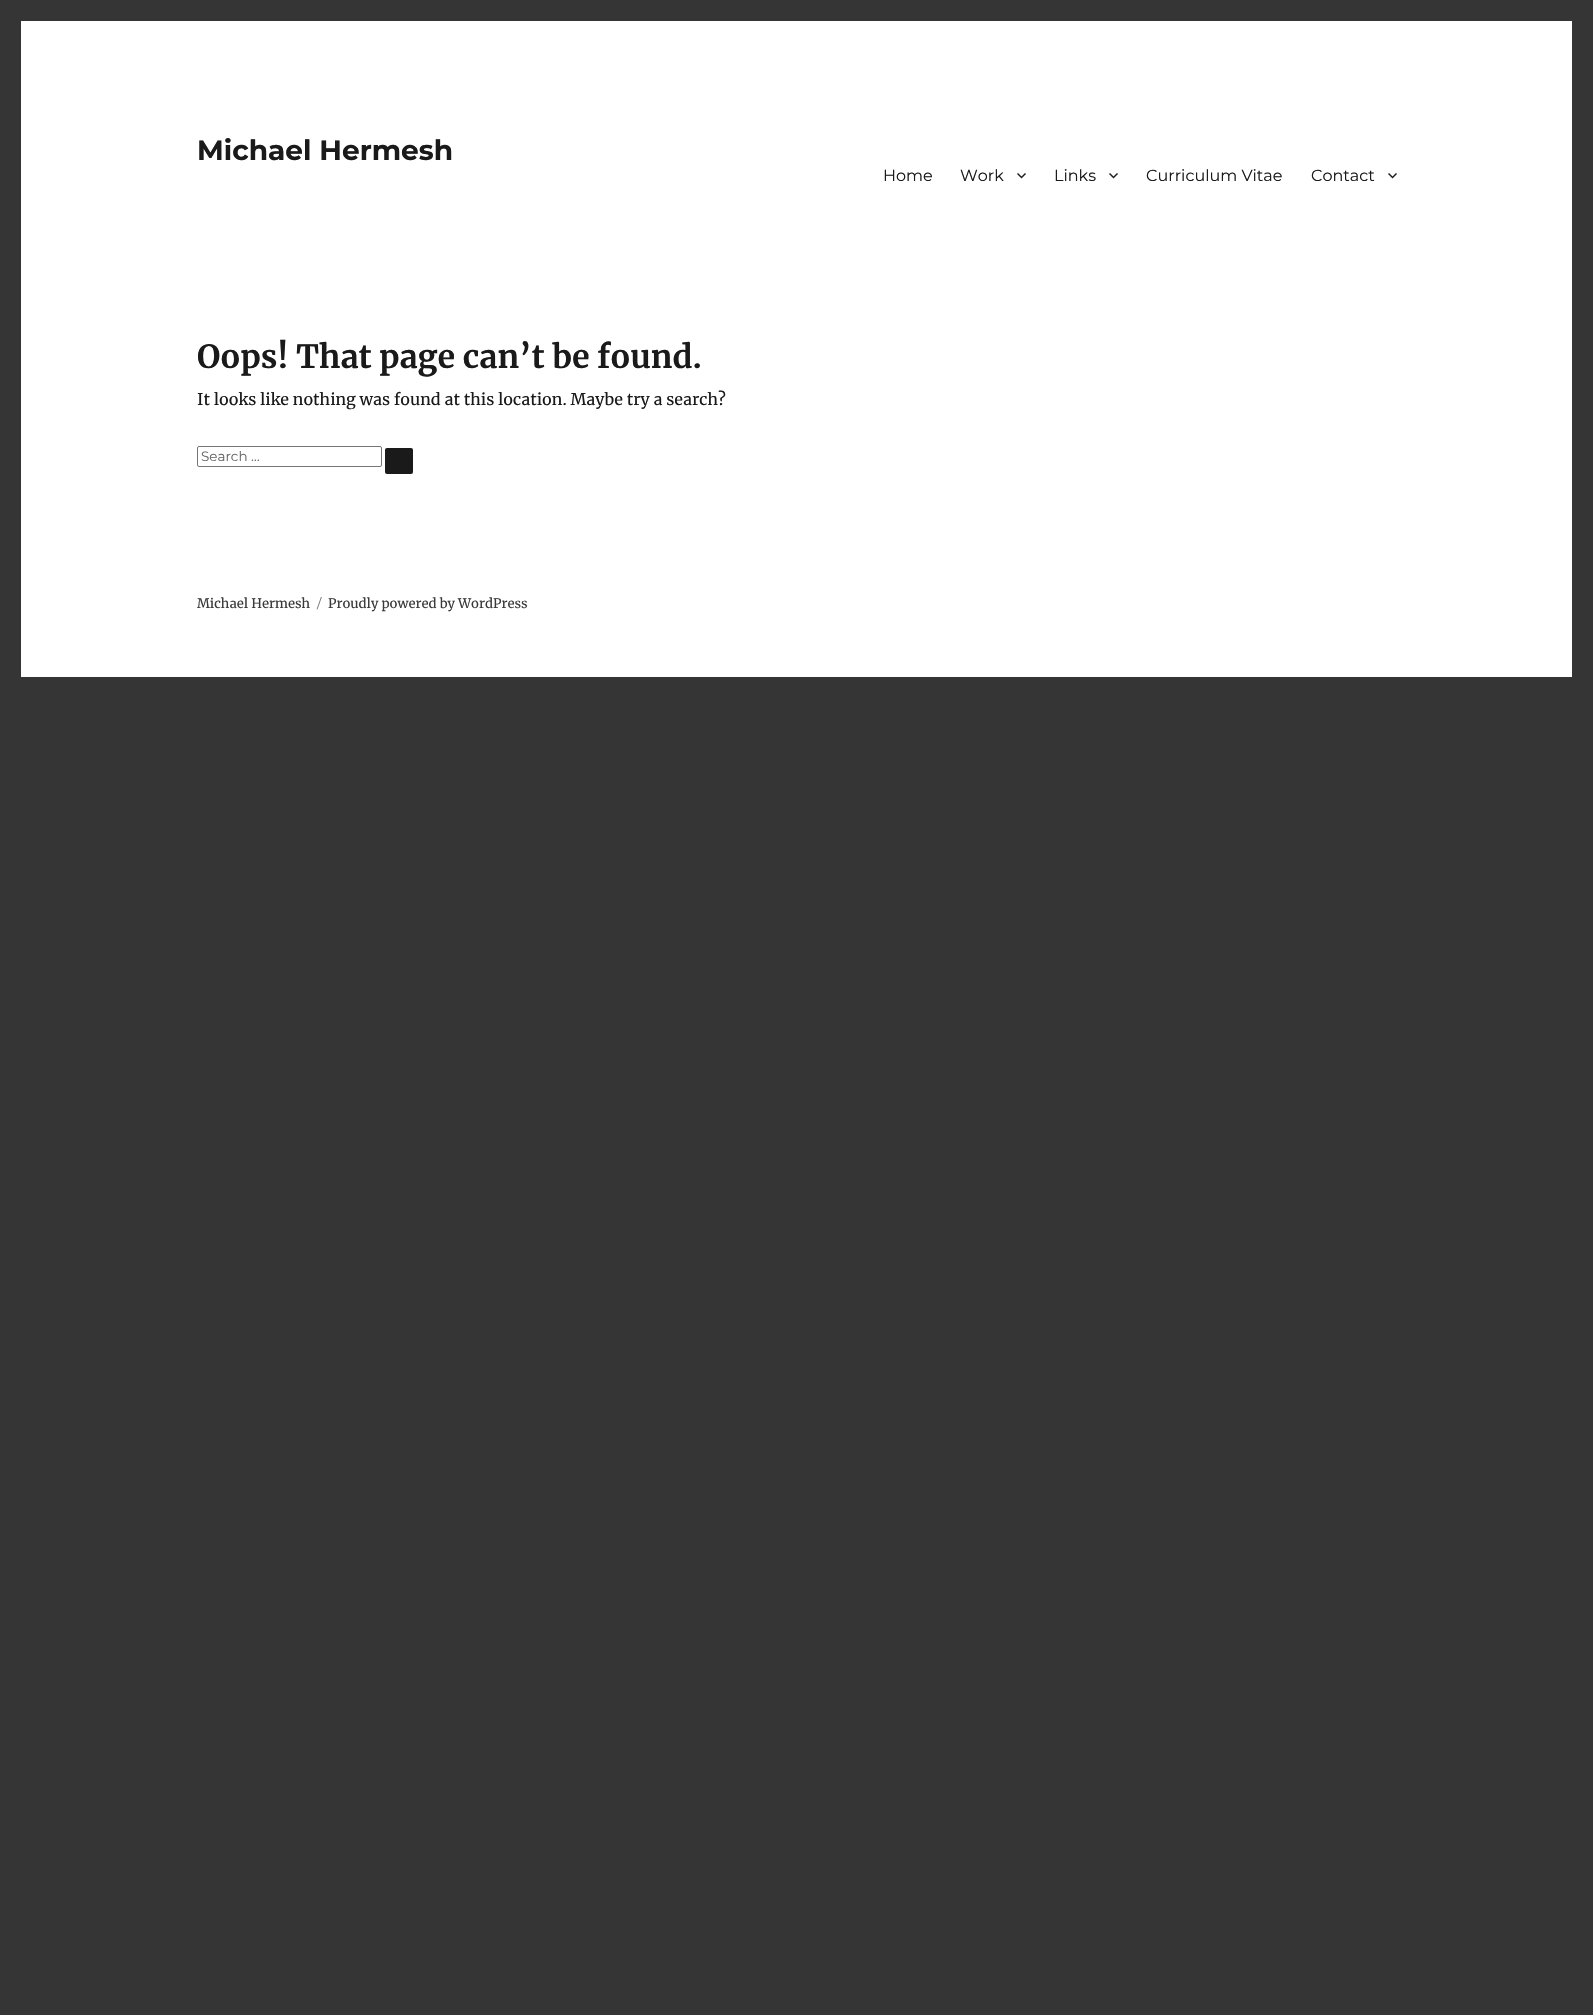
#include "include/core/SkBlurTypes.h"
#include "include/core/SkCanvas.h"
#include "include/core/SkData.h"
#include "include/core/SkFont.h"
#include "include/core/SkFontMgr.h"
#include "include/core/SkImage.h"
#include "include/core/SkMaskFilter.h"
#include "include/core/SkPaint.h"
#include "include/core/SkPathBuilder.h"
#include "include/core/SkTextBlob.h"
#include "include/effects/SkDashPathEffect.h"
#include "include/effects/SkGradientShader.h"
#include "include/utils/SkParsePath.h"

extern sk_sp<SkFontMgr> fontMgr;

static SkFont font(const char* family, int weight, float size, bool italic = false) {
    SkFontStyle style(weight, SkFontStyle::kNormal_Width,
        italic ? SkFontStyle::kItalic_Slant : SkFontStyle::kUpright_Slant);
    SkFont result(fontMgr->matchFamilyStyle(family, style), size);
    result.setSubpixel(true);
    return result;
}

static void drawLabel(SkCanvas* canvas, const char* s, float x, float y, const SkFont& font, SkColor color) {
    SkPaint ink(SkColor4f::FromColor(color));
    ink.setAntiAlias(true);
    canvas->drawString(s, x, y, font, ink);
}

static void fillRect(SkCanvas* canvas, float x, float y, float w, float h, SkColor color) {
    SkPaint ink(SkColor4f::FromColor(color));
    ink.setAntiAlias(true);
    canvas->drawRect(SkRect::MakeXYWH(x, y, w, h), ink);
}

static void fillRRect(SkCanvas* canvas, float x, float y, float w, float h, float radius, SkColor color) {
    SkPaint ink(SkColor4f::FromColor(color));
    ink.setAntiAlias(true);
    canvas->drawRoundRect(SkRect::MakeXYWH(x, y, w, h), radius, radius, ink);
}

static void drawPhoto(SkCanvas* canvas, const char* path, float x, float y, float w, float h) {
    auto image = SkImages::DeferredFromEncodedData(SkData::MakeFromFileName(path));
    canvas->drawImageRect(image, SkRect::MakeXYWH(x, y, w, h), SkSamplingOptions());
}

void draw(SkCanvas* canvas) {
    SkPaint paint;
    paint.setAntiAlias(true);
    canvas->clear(0xFF353535);
    fillRect(canvas, 21, 21, 1551, 656, 0xFFFFFFFF);
    SkFont font1 = font("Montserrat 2", 100, 28);
    drawLabel(canvas, "Michael Hermesh", 197, 160, font1, 0xFF1A1A1A);
    SkFont font2 = font("Montserrat", 100, 16);
    drawLabel(canvas, "Home", 883, 181, font2, 0xFF1A1A1A);
    drawLabel(canvas, "Work", 960, 181, font2, 0xFF1A1A1A);
    drawPhoto(canvas, "assets/img1.png", 1017, 173, 9, 6);
    drawLabel(canvas, "Links", 1054, 181, font2, 0xFF1A1A1A);
    drawPhoto(canvas, "assets/img1.png", 1109, 173, 9, 6);
    drawLabel(canvas, "Curriculum Vitae", 1146, 181, font2, 0xFF1A1A1A);
    drawLabel(canvas, "Contact", 1311, 181, font2, 0xFF1A1A1A);
    drawPhoto(canvas, "assets/img1.png", 1388, 173, 9, 6);
    SkFont font3 = font("Merriweather", 700, 32);
    drawLabel(canvas, "Oops! That page can’t be found.", 197, 368, font3, 0xFF1A1A1A);
    SkFont font4 = font("Merriweather", 400, 16);
    drawLabel(canvas, "It looks like nothing was found at this location. Maybe try a search?", 197, 405, font4, 0xFF1A1A1A);
    paint.setStroke(true);
    paint.setStrokeWidth(1);
    paint.setColor(0xFF767676);
    canvas->drawRoundRect(SkRect::MakeXYWH(197.5f, 446.5f, 184, 20), 1.5f, 1.5f, paint);
    SkFont font5 = font("Montserrat", 100, 13.5f);
    drawLabel(canvas, "Search …", 201, 461, font5, 0xFF686868);
    fillRRect(canvas, 385, 448, 28, 26, 2, 0xFF1A1A1A);
    SkFont font6 = font("Merriweather", 400, 13);
    drawLabel(canvas, "Michael Hermesh", 197, 608, font6, 0xFF3A3A3A);
    SkFont font7 = font("Montserrat", 100, 13);
    drawLabel(canvas, "/", 317, 608, font7, 0xFF757575);
    drawLabel(canvas, "Proudly powered by WordPress", 328, 608, font6, 0xFF3A3A3A);
}
